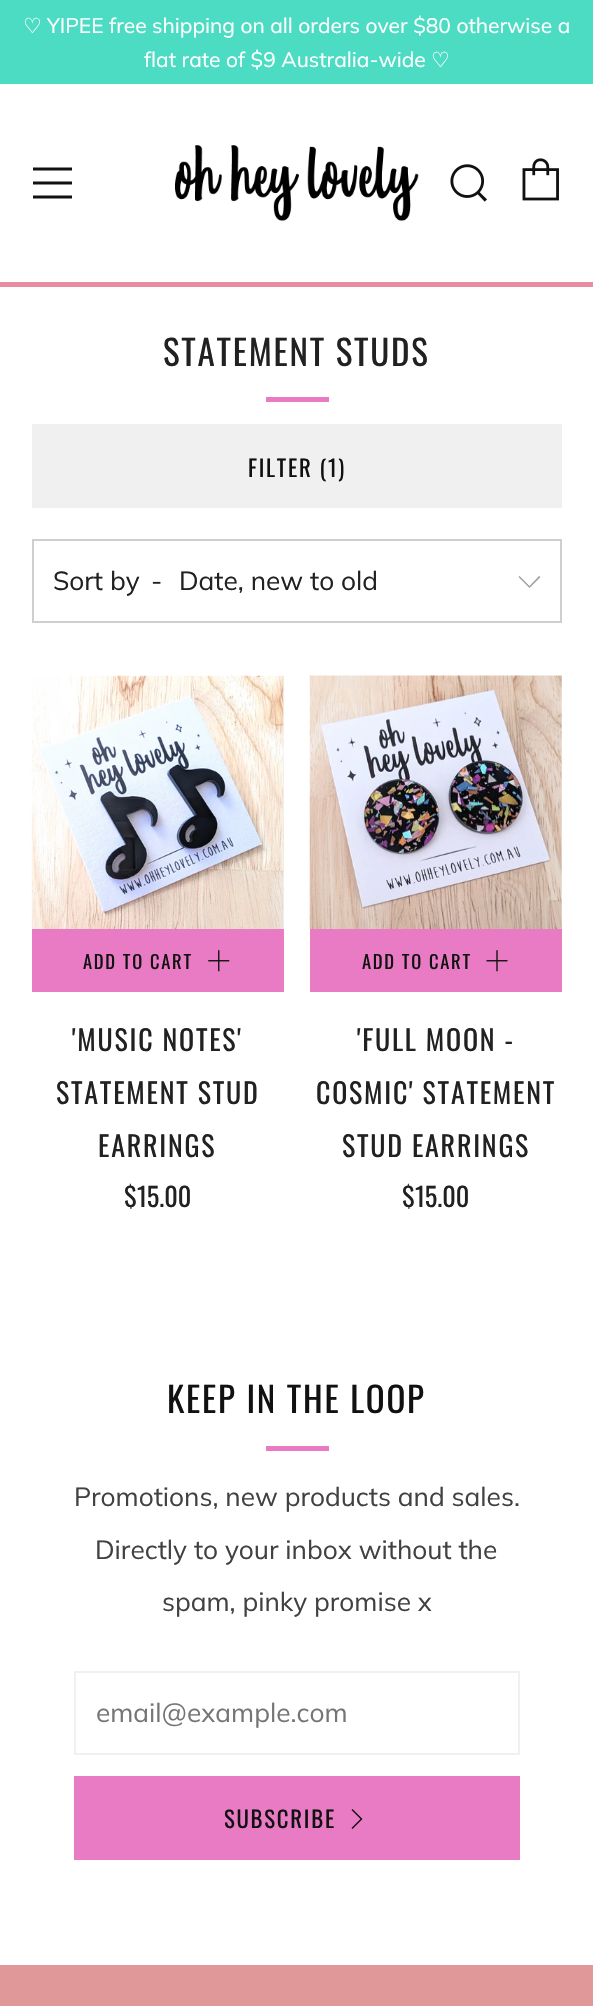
#include "include/core/SkBlurTypes.h"
#include "include/core/SkCanvas.h"
#include "include/core/SkData.h"
#include "include/core/SkFont.h"
#include "include/core/SkFontMgr.h"
#include "include/core/SkImage.h"
#include "include/core/SkMaskFilter.h"
#include "include/core/SkPaint.h"
#include "include/core/SkPathBuilder.h"
#include "include/core/SkTextBlob.h"
#include "include/effects/SkDashPathEffect.h"
#include "include/effects/SkGradientShader.h"
#include "include/utils/SkParsePath.h"

extern sk_sp<SkFontMgr> fontMgr;

static SkFont font(const char* family, int weight, float size, bool italic = false) {
    SkFontStyle style(weight, SkFontStyle::kNormal_Width,
        italic ? SkFontStyle::kItalic_Slant : SkFontStyle::kUpright_Slant);
    SkFont result(fontMgr->matchFamilyStyle(family, style), size);
    result.setSubpixel(true);
    return result;
}

static void drawLabel(SkCanvas* canvas, const char* s, float x, float y, const SkFont& font, SkColor color) {
    SkPaint ink(SkColor4f::FromColor(color));
    ink.setAntiAlias(true);
    canvas->drawString(s, x, y, font, ink);
}

static void drawTracked(SkCanvas* canvas, const char* s, float x, float y, const SkFont& font, const SkPaint& ink, float letter, float word) {
    std::vector<SkGlyphID> glyphs(font.countText(s, strlen(s), SkTextEncoding::kUTF8));
    std::vector<float> xs(glyphs.size());
    font.textToGlyphs(s, strlen(s), SkTextEncoding::kUTF8, glyphs);
    font.getXPos(glyphs, xs, x);
    float extra = 0;
    for (size_t i = 0; i < glyphs.size(); i++) {
        xs[i] += extra;
        extra += letter + word * (glyphs[i] == font.unicharToGlyph(' '));
    }
    canvas->drawTextBlob(SkTextBlob::MakeFromPosHGlyphs(glyphs, xs, y, font), 0, 0, ink);
}

static void fillRect(SkCanvas* canvas, float x, float y, float w, float h, SkColor color) {
    SkPaint ink(SkColor4f::FromColor(color));
    ink.setAntiAlias(true);
    canvas->drawRect(SkRect::MakeXYWH(x, y, w, h), ink);
}

static void drawPhoto(SkCanvas* canvas, const char* path, float x, float y, float w, float h) {
    auto image = SkImages::DeferredFromEncodedData(SkData::MakeFromFileName(path));
    canvas->drawImageRect(image, SkRect::MakeXYWH(x, y, w, h), SkSamplingOptions());
}

static SkPath parsePath(const char* data, bool evenOdd = false) {
    SkPath result = *SkParsePath::FromSVGString(data);
    if (evenOdd) result.setFillType(SkPathFillType::kEvenOdd);
    return result;
}

void draw(SkCanvas* canvas) {
    SkPaint paint;
    paint.setAntiAlias(true);
    canvas->clear(0xFFFFFFFF);
    fillRect(canvas, 0, 0, 593, 84, 0xFF4CDBC3);
    SkFont font1 = font("DejaVu Sans", 400, 21);
    drawLabel(canvas, "♡", 23, 33, font1, 0xFFFFFFFF);
    SkFont font2 = font("Muli", 400, 21);
    drawLabel(canvas, "YIPEE free shipping on all orders over $80 otherwise a", 47, 33, font2, 0xFFFFFFFF);
    drawLabel(canvas, "flat rate of $9 Australia-wide", 144, 67, font2, 0xFFFFFFFF);
    drawLabel(canvas, "♡", 431, 67, font1, 0xFFFFFFFF);
    fillRect(canvas, 0, 282, 593, 5, 0xFFE88CA1);
    paint.setColor(0xFF111111);
    canvas->drawPath(parsePath("M33 170.5H72V167.5H33ZM33 198.5H72V195.5H33ZM33 184.5H72V181.5H33Z"), paint);
    drawPhoto(canvas, "assets/img1.png", 175, 145, 244, 76);
    drawPhoto(canvas, "assets/img2.png", 450, 164, 37, 38);
    drawPhoto(canvas, "assets/img3.png", 522, 158, 37, 43);
    SkFont font3 = font("Oswald", 400, 35);
    paint.setColor(0xFF212121);
    drawTracked(canvas, "STATEMENT STUDS", 163, 366, font3, paint, 1.75f, 0);
    fillRect(canvas, 266, 397, 63, 5, 0xFFE97AC4);
    fillRect(canvas, 32, 424, 530, 84, 0xFFF0F0F0);
    SkFont font4 = font("Oswald", 400, 22.75f);
    paint.setColor(0xFF111111);
    drawTracked(canvas, "FILTER (1)", 248, 477, font4, paint, 1.75f, 0);
    paint.setStroke(true);
    paint.setStrokeWidth(2);
    paint.setColor(0xFFCFCFCF);
    canvas->drawRect(SkRect::MakeXYWH(33, 540, 528, 82), paint);
    SkFont font5 = font("Muli", 400, 26.25f);
    drawLabel(canvas, "Sort by", 53, 590, font5, 0xFF212121);
    drawLabel(canvas, "-", 151, 590, font5, 0xFF212121);
    drawLabel(canvas, "Date, new to old", 179, 590, font5, 0xFF212121);
    paint.setStroke(false);
    paint.setColor(0xFFA0A0A0);
    canvas->drawPath(parsePath("M519.5 576L518.5 577L529.5 588L540.5 577L539 576L529.5 586Z"), paint);
    fillRect(canvas, 283, 676, 1, 253, 0xFFF0F0F0);
    drawPhoto(canvas, "assets/img4.png", 31, 675, 253, 254);
    fillRect(canvas, 32, 929, 252, 63, 0xFFE97AC4);
    SkFont font6 = font("Oswald", 400, 18.5f);
    paint.setColor(0xFF111111);
    drawTracked(canvas, "ADD TO CART", 83, 969, font6, paint, 1.75f, 0);
    drawPhoto(canvas, "assets/img5.png", 208, 950, 22, 22);
    SkFont font7 = font("Oswald", 400, 28);
    paint.setColor(0xFF212121);
    drawTracked(canvas, "'MUSIC NOTES'", 72, 1051, font7, paint, 1.75f, 0);
    drawTracked(canvas, "STATEMENT STUD", 56, 1104, font7, paint, 1.75f, 0);
    drawTracked(canvas, "EARRINGS", 98, 1157, font7, paint, 1.75f, 0);
    SkFont font8 = font("Oswald", 400, 26.25f);
    drawLabel(canvas, "$15.00", 124, 1207, font8, 0xFF212121);
    drawPhoto(canvas, "assets/img6.png", 309, 675, 253, 255);
    fillRect(canvas, 310, 929, 252, 63, 0xFFE97AC4);
    paint.setColor(0xFF111111);
    drawTracked(canvas, "ADD TO CART", 362, 969, font6, paint, 1.75f, 0);
    drawPhoto(canvas, "assets/img7.png", 486, 950, 22, 22);
    paint.setColor(0xFF212121);
    drawTracked(canvas, "'FULL MOON -", 357, 1051, font7, paint, 1.75f, 0);
    drawTracked(canvas, "COSMIC' STATEMENT", 316, 1104, font7, paint, 1.75f, 0);
    drawTracked(canvas, "STUD EARRINGS", 342, 1157, font7, paint, 1.75f, 0);
    drawLabel(canvas, "$15.00", 402, 1207, font8, 0xFF212121);
    paint.setColor(0xFF111111);
    drawTracked(canvas, "KEEP IN THE LOOP", 167, 1413, font3, paint, 1.75f, 0);
    fillRect(canvas, 266, 1446, 63, 5, 0xFFE97AC4);
    drawLabel(canvas, "Promotions, new products and sales.", 74, 1506, font5, 0xFF414141);
    drawLabel(canvas, "Directly to your inbox without the", 95, 1559, font5, 0xFF414141);
    drawLabel(canvas, "spam, pinky promise x", 162, 1611, font5, 0xFF414141);
    paint.setStroke(true);
    paint.setColor(0xFFF0F0F0);
    canvas->drawRect(SkRect::MakeXYWH(75, 1672, 444, 82), paint);
    drawLabel(canvas, "email@example.com", 96, 1722, font5, 0xFF757575);
    fillRect(canvas, 74, 1776, 446, 84, 0xFFE97AC4);
    paint.setStroke(false);
    paint.setColor(0xFF111111);
    drawTracked(canvas, "SUBSCRIBE", 224, 1828, font4, paint, 1.75f, 0);
    canvas->drawPath(parsePath("M351.5 1828L352.5 1829L362.5 1819L352.5 1809L351.5 1810L360.5 1819Z"), paint);
    fillRect(canvas, 0, 1965, 593, 41, 0xFFE19898);
}
